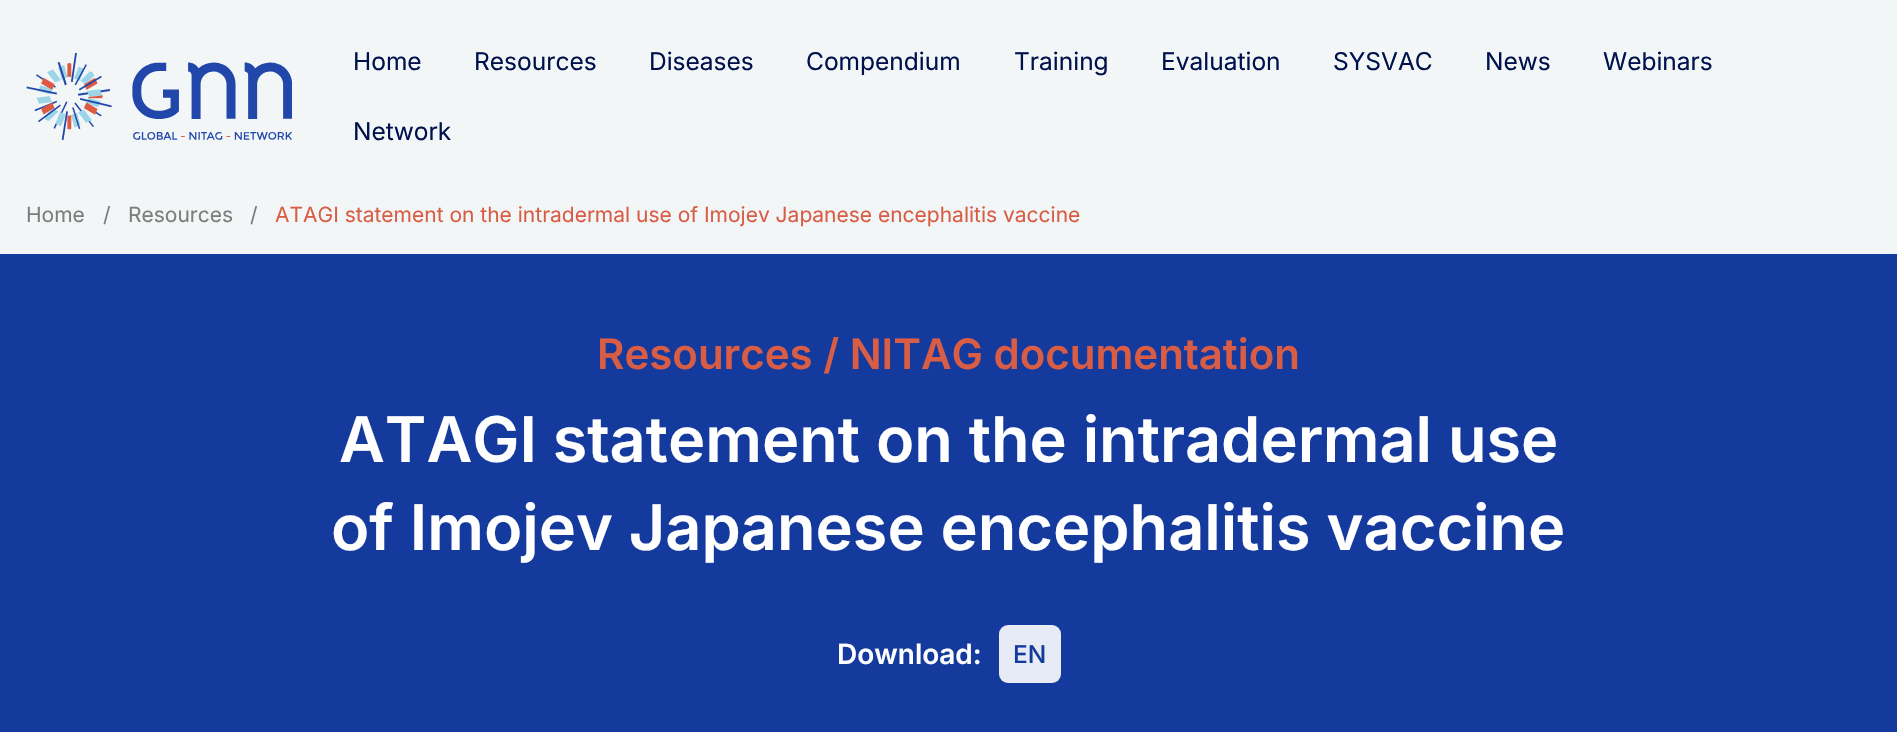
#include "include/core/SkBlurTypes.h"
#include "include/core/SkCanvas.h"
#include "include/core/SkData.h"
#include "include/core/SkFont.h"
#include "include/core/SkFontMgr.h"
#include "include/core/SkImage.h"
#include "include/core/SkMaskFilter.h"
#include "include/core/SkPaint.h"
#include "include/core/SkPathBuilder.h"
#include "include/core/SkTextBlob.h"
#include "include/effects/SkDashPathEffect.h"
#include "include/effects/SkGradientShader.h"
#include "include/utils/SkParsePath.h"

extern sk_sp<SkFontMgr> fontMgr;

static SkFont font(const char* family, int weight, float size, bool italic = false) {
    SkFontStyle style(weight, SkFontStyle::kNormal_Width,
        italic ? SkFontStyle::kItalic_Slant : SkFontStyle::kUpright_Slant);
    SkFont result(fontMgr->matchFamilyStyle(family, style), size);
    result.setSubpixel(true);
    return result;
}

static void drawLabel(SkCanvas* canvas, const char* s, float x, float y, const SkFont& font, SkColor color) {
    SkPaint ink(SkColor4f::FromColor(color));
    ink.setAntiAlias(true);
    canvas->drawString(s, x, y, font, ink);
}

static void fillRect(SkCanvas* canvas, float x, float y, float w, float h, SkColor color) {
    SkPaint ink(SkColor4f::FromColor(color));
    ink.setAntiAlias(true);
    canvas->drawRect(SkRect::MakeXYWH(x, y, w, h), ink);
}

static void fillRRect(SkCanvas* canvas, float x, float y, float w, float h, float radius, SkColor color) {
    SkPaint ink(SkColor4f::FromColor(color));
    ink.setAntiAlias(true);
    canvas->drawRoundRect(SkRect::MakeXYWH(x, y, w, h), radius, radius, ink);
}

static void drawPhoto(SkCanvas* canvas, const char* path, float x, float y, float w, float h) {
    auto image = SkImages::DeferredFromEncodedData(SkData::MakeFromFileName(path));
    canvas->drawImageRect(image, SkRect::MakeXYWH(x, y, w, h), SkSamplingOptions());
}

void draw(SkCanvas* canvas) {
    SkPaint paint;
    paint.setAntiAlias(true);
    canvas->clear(0xFFF3F6F7);
    drawPhoto(canvas, "assets/img1.png", 26, 53, 266, 87);
    SkFont font1 = font("Inter", 400, 24.5f);
    drawLabel(canvas, "Home", 353, 70, font1, 0xFF00124D);
    drawLabel(canvas, "Resources", 474, 70, font1, 0xFF00124D);
    drawLabel(canvas, "Diseases", 649, 70, font1, 0xFF00124D);
    drawLabel(canvas, "Compendium", 806, 70, font1, 0xFF00124D);
    drawLabel(canvas, "Training", 1014, 70, font1, 0xFF00124D);
    drawLabel(canvas, "Evaluation", 1161, 70, font1, 0xFF00124D);
    drawLabel(canvas, "SYSVAC", 1333, 70, font1, 0xFF00124D);
    drawLabel(canvas, "News", 1485, 70, font1, 0xFF00124D);
    drawLabel(canvas, "Webinars", 1603, 70, font1, 0xFF00124D);
    drawLabel(canvas, "Network", 353, 140, font1, 0xFF00124D);
    SkFont font2 = font("Inter", 400, 21);
    drawLabel(canvas, "Home", 26, 222, font2, 0xFF7D7D7D);
    drawLabel(canvas, "/", 103, 222, font2, 0xFF7D7D7D);
    drawLabel(canvas, "Resources", 128, 222, font2, 0xFF7D7D7D);
    drawLabel(canvas, "/", 250, 222, font2, 0xFF7D7D7D);
    drawLabel(canvas, "ATAGI statement on the intradermal use of Imojev Japanese encephalitis vaccine", 275, 222, font2, 0xFFD95D45);
    fillRect(canvas, 0, 254, 1897, 478, 0xFF153A9D);
    SkFont font3 = font("Inter", 600, 42);
    drawLabel(canvas, "Resources / NITAG documentation", 597, 369, font3, 0xFFD95D45);
    SkFont font4 = font("Inter", 600, 63);
    drawLabel(canvas, "ATAGI statement on the intradermal use", 339, 462, font4, 0xFFFFFFFF);
    drawLabel(canvas, "of Imojev Japanese encephalitis vaccine", 331, 550, font4, 0xFFFFFFFF);
    SkFont font5 = font("Inter", 600, 28);
    drawLabel(canvas, "Download:", 837, 664, font5, 0xFFFFFFFF);
    fillRRect(canvas, 999, 625, 62, 58, 9, 0xFFFFFFFF);
    fillRRect(canvas, 999, 625, 62, 58, 9, 0x1A153A9D);
    SkFont font6 = font("Inter", 500, 24.5f);
    drawLabel(canvas, "EN", 1013, 663, font6, 0xFF153A9D);
}
